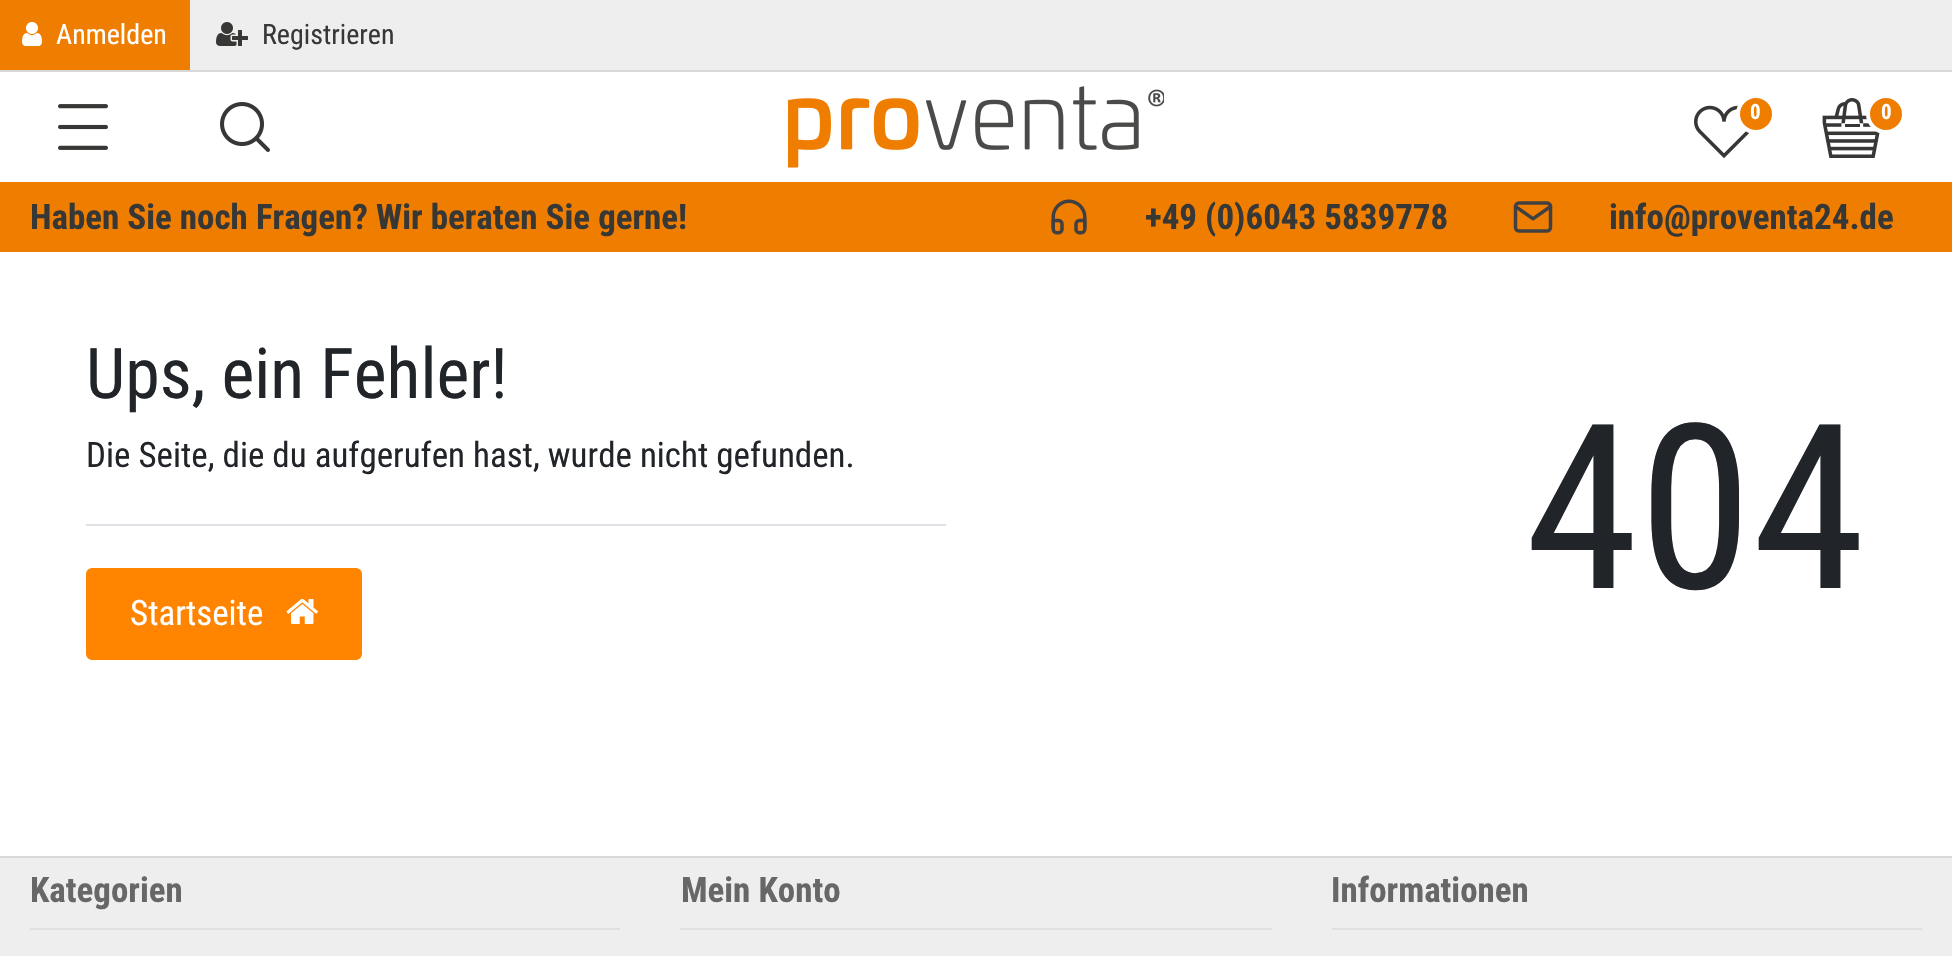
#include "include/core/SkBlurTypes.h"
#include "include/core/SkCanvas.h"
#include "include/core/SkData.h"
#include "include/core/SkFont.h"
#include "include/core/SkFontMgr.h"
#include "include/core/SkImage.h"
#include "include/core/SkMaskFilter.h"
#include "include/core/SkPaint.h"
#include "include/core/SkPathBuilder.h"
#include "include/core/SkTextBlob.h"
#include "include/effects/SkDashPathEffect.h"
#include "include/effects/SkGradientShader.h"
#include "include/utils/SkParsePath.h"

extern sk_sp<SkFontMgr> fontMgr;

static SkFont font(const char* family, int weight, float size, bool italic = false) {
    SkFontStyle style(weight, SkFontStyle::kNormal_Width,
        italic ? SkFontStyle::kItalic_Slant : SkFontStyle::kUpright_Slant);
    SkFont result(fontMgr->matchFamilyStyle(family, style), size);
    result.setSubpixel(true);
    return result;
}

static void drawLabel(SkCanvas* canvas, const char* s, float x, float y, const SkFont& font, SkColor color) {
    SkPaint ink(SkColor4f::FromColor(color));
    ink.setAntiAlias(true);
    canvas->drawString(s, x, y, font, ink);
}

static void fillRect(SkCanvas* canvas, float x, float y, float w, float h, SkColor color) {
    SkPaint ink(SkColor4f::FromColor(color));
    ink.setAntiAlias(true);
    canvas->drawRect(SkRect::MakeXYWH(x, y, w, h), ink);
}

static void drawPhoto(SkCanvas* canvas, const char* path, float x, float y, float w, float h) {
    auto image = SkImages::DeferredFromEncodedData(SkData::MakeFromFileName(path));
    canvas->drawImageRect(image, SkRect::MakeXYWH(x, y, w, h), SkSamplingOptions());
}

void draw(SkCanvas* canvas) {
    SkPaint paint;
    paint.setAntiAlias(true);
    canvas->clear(0xFFFFFFFF);
    fillRect(canvas, 190, 0, 1762, 70, 0xFFEEEEEE);
    fillRect(canvas, 0, 70, 1952, 2, 0xFFD8D8D8);
    fillRect(canvas, 0, 0, 190, 70, 0xFFEF7D00);
    drawPhoto(canvas, "assets/img1.png", 22, 22, 20, 24);
    SkFont font1 = font("Roboto Condensed", 400, 28);
    drawLabel(canvas, "Anmelden", 56, 44, font1, 0xFFFFFFFF);
    drawPhoto(canvas, "assets/img2.png", 216, 22, 32, 24);
    drawLabel(canvas, "Registrieren", 262, 44, font1, 0xFF373736);
    drawPhoto(canvas, "assets/img3.png", 58, 104, 50, 46);
    drawPhoto(canvas, "assets/img4.png", 220, 102, 50, 50);
    drawPhoto(canvas, "assets/img5.png", 788, 86, 376, 82);
    drawPhoto(canvas, "assets/img6.png", 1694, 105, 56, 54);
    paint.setColor(0xFFEF7D00);
    canvas->drawCircle(1756, 114, 18, paint);
    paint.setStroke(true);
    paint.setStrokeWidth(4);
    paint.setColor(0xFFFFFFFF);
    canvas->drawCircle(1756, 114, 18, paint);
    SkFont font2 = font("Roboto Condensed", 700, 21);
    drawLabel(canvas, "0", 1750, 119, font2, 0xFFFFFFFF);
    drawPhoto(canvas, "assets/img7.png", 1822, 98, 58, 60);
    paint.setStroke(false);
    paint.setColor(0xFFEF7D00);
    canvas->drawCircle(1886, 114, 18, paint);
    paint.setStroke(true);
    paint.setColor(0xFFFFFFFF);
    canvas->drawCircle(1886, 114, 18, paint);
    drawLabel(canvas, "0", 1881, 119, font2, 0xFFFFFFFF);
    fillRect(canvas, 0, 182, 1952, 70, 0xFFEF7D00);
    SkFont font3 = font("Roboto Condensed", 700, 35);
    drawLabel(canvas, "Haben Sie noch Fragen? Wir beraten Sie gerne!", 30, 229, font3, 0xFF373736);
    drawPhoto(canvas, "assets/img8.png", 1051, 199, 36, 36);
    drawLabel(canvas, "+49 (0)6043 5839778", 1145, 229, font3, 0xFF373736);
    drawPhoto(canvas, "assets/img9.png", 1513, 201, 40, 32);
    drawLabel(canvas, "info@proventa24.de", 1609, 229, font3, 0xFF373736);
    SkFont font4 = font("Roboto Condensed", 400, 70);
    drawLabel(canvas, "Ups, ein Fehler!", 86, 398, font4, 0xFF212529);
    SkFont font5 = font("Roboto Condensed", 400, 35);
    drawLabel(canvas, "Die Seite, die du aufgerufen hast, wurde nicht gefunden.", 86, 467, font5, 0xFF212529);
    fillRect(canvas, 86, 524, 860, 2, 0xFFDEE2E6);
    paint.setStroke(false);
    paint.setColor(0xFFFF8400);
    canvas->drawRoundRect(SkRect::MakeXYWH(87, 569, 274, 90), 5, 5, paint);
    paint.setStroke(true);
    paint.setStrokeWidth(2);
    canvas->drawRoundRect(SkRect::MakeXYWH(87, 569, 274, 90), 5, 5, paint);
    drawLabel(canvas, "Startseite", 130, 625, font5, 0xFFFFFFFF);
    drawPhoto(canvas, "assets/img10.png", 286, 598, 32, 26);
    SkFont font6 = font("Roboto Condensed", 400, 230);
    drawLabel(canvas, "404", 1525, 588, font6, 0xFF212529);
    fillRect(canvas, 0, 858, 1952, 98, 0xFFEEEEEE);
    fillRect(canvas, 0, 856, 1952, 2, 0xFFD8D8D8);
    fillRect(canvas, 30, 928, 590, 2, 0xFFE0E0E0);
    drawLabel(canvas, "Kategorien", 30, 902, font3, 0xFF676767);
    fillRect(canvas, 680, 928, 592, 2, 0xFFE0E0E0);
    drawLabel(canvas, "Mein Konto", 681, 902, font3, 0xFF676767);
    fillRect(canvas, 1332, 928, 590, 2, 0xFFE0E0E0);
    drawLabel(canvas, "Informationen", 1331, 902, font3, 0xFF676767);
}
